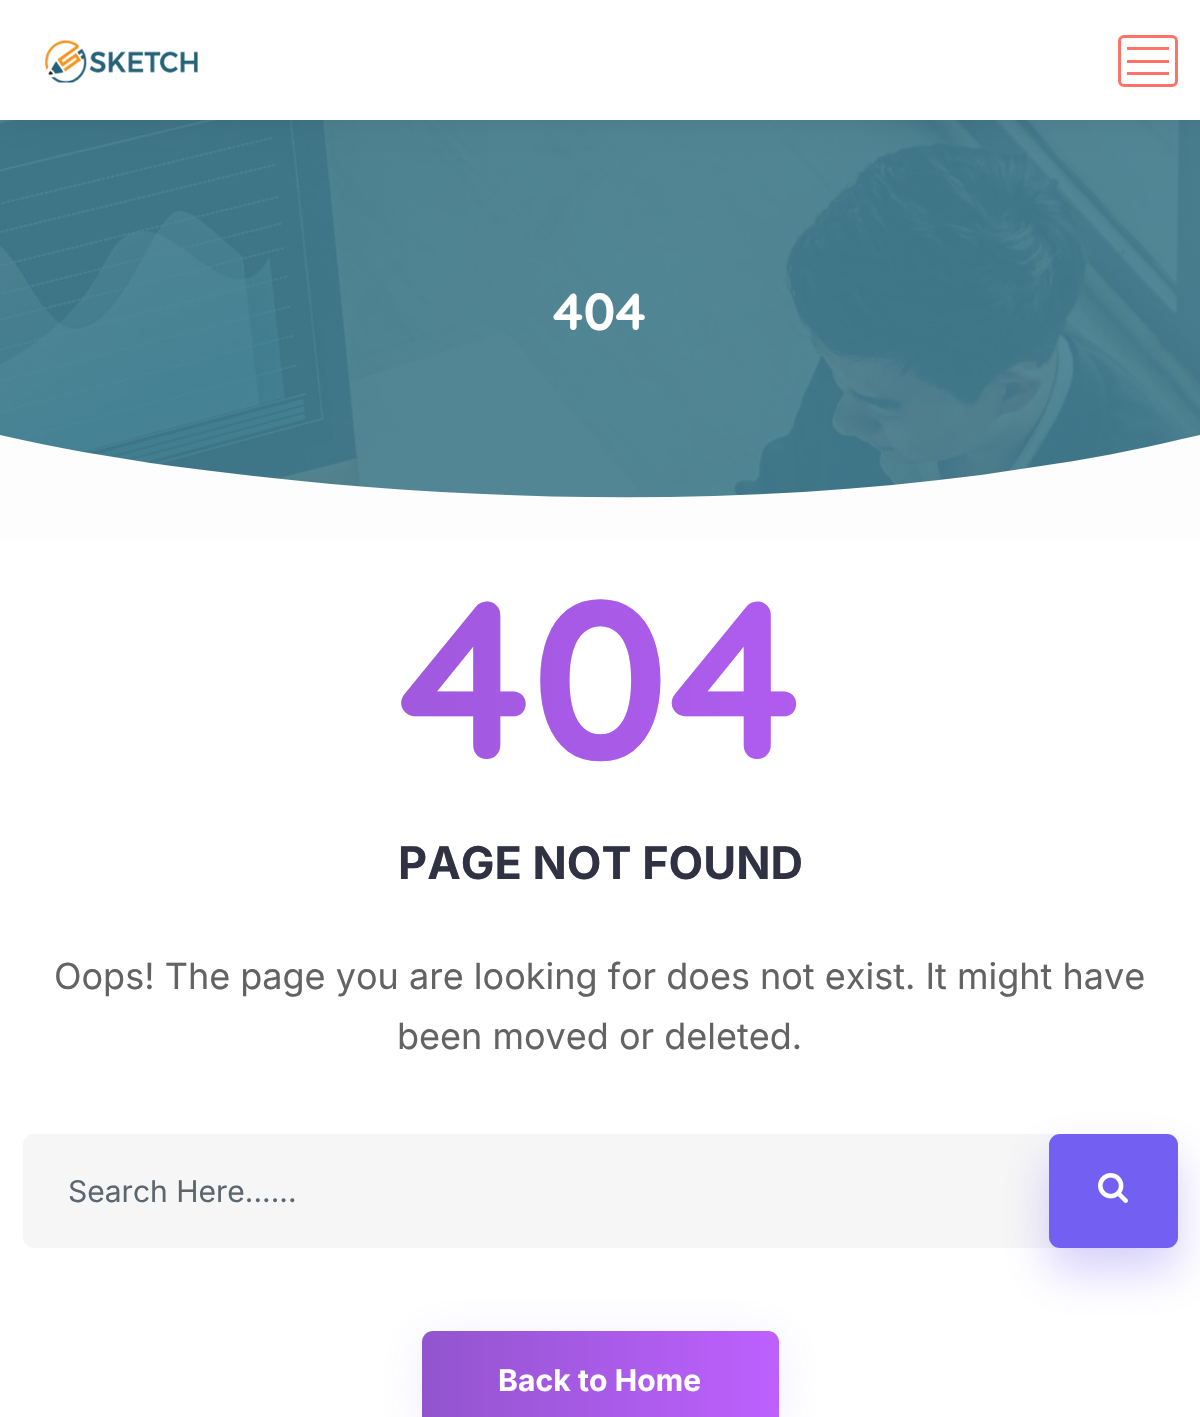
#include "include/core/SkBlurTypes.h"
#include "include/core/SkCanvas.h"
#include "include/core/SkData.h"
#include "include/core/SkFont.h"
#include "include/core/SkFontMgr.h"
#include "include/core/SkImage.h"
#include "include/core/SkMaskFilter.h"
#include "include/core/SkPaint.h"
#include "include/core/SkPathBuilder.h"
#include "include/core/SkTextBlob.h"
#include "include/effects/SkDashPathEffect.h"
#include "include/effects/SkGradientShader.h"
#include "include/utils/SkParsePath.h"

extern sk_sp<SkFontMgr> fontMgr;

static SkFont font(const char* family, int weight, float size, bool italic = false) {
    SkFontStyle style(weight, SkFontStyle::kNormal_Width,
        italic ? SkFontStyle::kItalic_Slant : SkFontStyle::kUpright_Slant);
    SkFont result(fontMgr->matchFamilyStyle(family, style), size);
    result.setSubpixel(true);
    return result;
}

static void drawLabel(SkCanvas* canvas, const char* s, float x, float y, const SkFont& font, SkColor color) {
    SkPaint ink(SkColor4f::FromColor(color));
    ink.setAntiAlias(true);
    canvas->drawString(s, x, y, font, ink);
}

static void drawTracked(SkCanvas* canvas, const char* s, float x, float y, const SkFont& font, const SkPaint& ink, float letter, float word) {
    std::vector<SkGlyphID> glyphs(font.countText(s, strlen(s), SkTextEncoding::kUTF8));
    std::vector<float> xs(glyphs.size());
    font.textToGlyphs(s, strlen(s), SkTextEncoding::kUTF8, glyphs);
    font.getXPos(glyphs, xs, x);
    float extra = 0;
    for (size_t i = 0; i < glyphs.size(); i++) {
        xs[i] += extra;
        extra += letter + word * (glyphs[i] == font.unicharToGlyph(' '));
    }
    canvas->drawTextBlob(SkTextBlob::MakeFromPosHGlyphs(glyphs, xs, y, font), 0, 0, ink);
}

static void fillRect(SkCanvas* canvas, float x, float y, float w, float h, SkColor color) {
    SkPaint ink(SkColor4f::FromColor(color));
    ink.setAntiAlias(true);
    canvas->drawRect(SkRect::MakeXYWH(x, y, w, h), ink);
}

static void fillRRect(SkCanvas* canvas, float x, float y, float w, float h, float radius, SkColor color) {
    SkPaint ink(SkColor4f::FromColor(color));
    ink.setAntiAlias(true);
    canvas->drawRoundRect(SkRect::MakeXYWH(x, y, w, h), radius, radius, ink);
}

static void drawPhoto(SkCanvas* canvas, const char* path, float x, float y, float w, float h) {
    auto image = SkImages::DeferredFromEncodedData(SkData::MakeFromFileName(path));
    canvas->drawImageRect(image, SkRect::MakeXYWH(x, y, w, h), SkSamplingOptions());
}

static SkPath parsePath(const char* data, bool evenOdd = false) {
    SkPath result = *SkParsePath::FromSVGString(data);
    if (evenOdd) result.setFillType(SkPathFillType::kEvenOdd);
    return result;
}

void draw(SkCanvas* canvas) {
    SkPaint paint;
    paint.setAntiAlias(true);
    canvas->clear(0xFF427C8F);
    drawPhoto(canvas, "assets/img2.png", 0, 120, 1200, 378);
    paint.setColor(0x14000000);
    paint.setMaskFilter(SkMaskFilter::MakeBlur(kNormal_SkBlurStyle, 11));
    canvas->drawRect(SkRect::MakeXYWH(0, 0, 1200, 120), paint);
    paint.setMaskFilter(nullptr);
    fillRect(canvas, 0, 0, 1200, 120, 0xFFFFFFFF);
    drawPhoto(canvas, "assets/img1.png", 45, 40, 153, 43);
    paint.setStroke(true);
    paint.setStrokeWidth(3);
    paint.setColor(0xFFFF7268);
    canvas->drawRoundRect(SkRect::MakeXYWH(1119.5f, 36.5f, 57, 49), 4.5f, 4.5f, paint);
    fillRect(canvas, 1127, 47, 42, 3, 0xFFFF7268);
    fillRect(canvas, 1127, 60, 42, 3, 0xFFFF7268);
    fillRect(canvas, 1127, 72, 42, 3, 0xFFFF7268);
    SkFont font1 = font("Quicksand", 700, 52);
    drawLabel(canvas, "404", 553, 330, font1, 0xFFFFFFFF);
    canvas->save();
    canvas->clipRect(SkRect::MakeXYWH(0, 392, 1200, 148));
    paint.setStroke(false);
    paint.setColor(0xFFFDFDFD);
    canvas->drawPath(parsePath("M0 625V435C57 448 115 458 172 466C225 473 278 479 331 484C547 503 766 503 981 475C1005 471 1030 468 1054 464C1103 457 1152 446 1200 435V625C730 732 204 670 0 625Z"), paint);
    canvas->restore();
    fillRect(canvas, 0, 540, 1200, 877, 0xFFFFFFFF);
    SkFont font2 = font("Quicksand", 700, 225);
    {
        const SkColor colors[] = {0xFF9255CE, 0xFFBE60FF};
        const float stops[] = {0, 1};
        const SkPoint ends[] = {{23, 675}, {1178, 675}};
        paint.setShader(SkGradientShader::MakeLinear(ends, colors, stops, 2, SkTileMode::kClamp));
        paint.setAlpha(255);
    }
    canvas->drawString("404", 399, 759, font2, paint);
    SkFont font3 = font("Inter", 700, 45);
    drawLabel(canvas, "PAGE NOT FOUND", 398, 879, font3, 0xFF303142);
    SkFont font4 = font("Inter", 400, 36);
    drawLabel(canvas, "Oops! The page you are looking for does not exist. It might have", 54, 989, font4, 0xFF636363);
    drawLabel(canvas, "been moved or deleted.", 397, 1049, font4, 0xFF636363);
    fillRRect(canvas, 23, 1134, 1155, 114, 11, 0xFFF6F6F6);
    SkFont font5 = font("Inter", 400, 30);
    drawLabel(canvas, "Search Here......", 68, 1202, font5, 0xFF5D666F);
    paint.setShader(nullptr);
    paint.setColor(0x4D7360F2);
    paint.setMaskFilter(SkMaskFilter::MakeBlur(kNormal_SkBlurStyle, 22.5f));
    canvas->drawRoundRect(SkRect::MakeXYWH(1049, 1157, 129, 114), 11, 11, paint);
    paint.setMaskFilter(nullptr);
    fillRRect(canvas, 1049, 1134, 129, 114, 11, 0xFF7360F2);
    drawPhoto(canvas, "assets/img3.png", 1098, 1173, 30, 30);
    paint.setColor(0x1A5964FF);
    paint.setMaskFilter(SkMaskFilter::MakeBlur(kNormal_SkBlurStyle, 22.5f));
    canvas->drawRoundRect(SkRect::MakeXYWH(422, 1337, 357, 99), 11, 11, paint);
    paint.setMaskFilter(nullptr);
    {
        const SkColor colors[] = {0xFF9255CE, 0xFFBE60FF};
        const float stops[] = {0, 1};
        const SkPoint ends[] = {{422, 1380}, {779, 1380}};
        paint.setShader(SkGradientShader::MakeLinear(ends, colors, stops, 2, SkTileMode::kClamp));
        paint.setAlpha(255);
    }
    canvas->drawRoundRect(SkRect::MakeXYWH(422, 1331, 357, 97), 11, 11, paint);
    SkFont font6 = font("Inter", 700, 30);
    paint.setShader(nullptr);
    paint.setColor(0xFFFFFFFF);
    drawTracked(canvas, "Back to Home", 498, 1391, font6, paint, 0.1f, 0);
}
